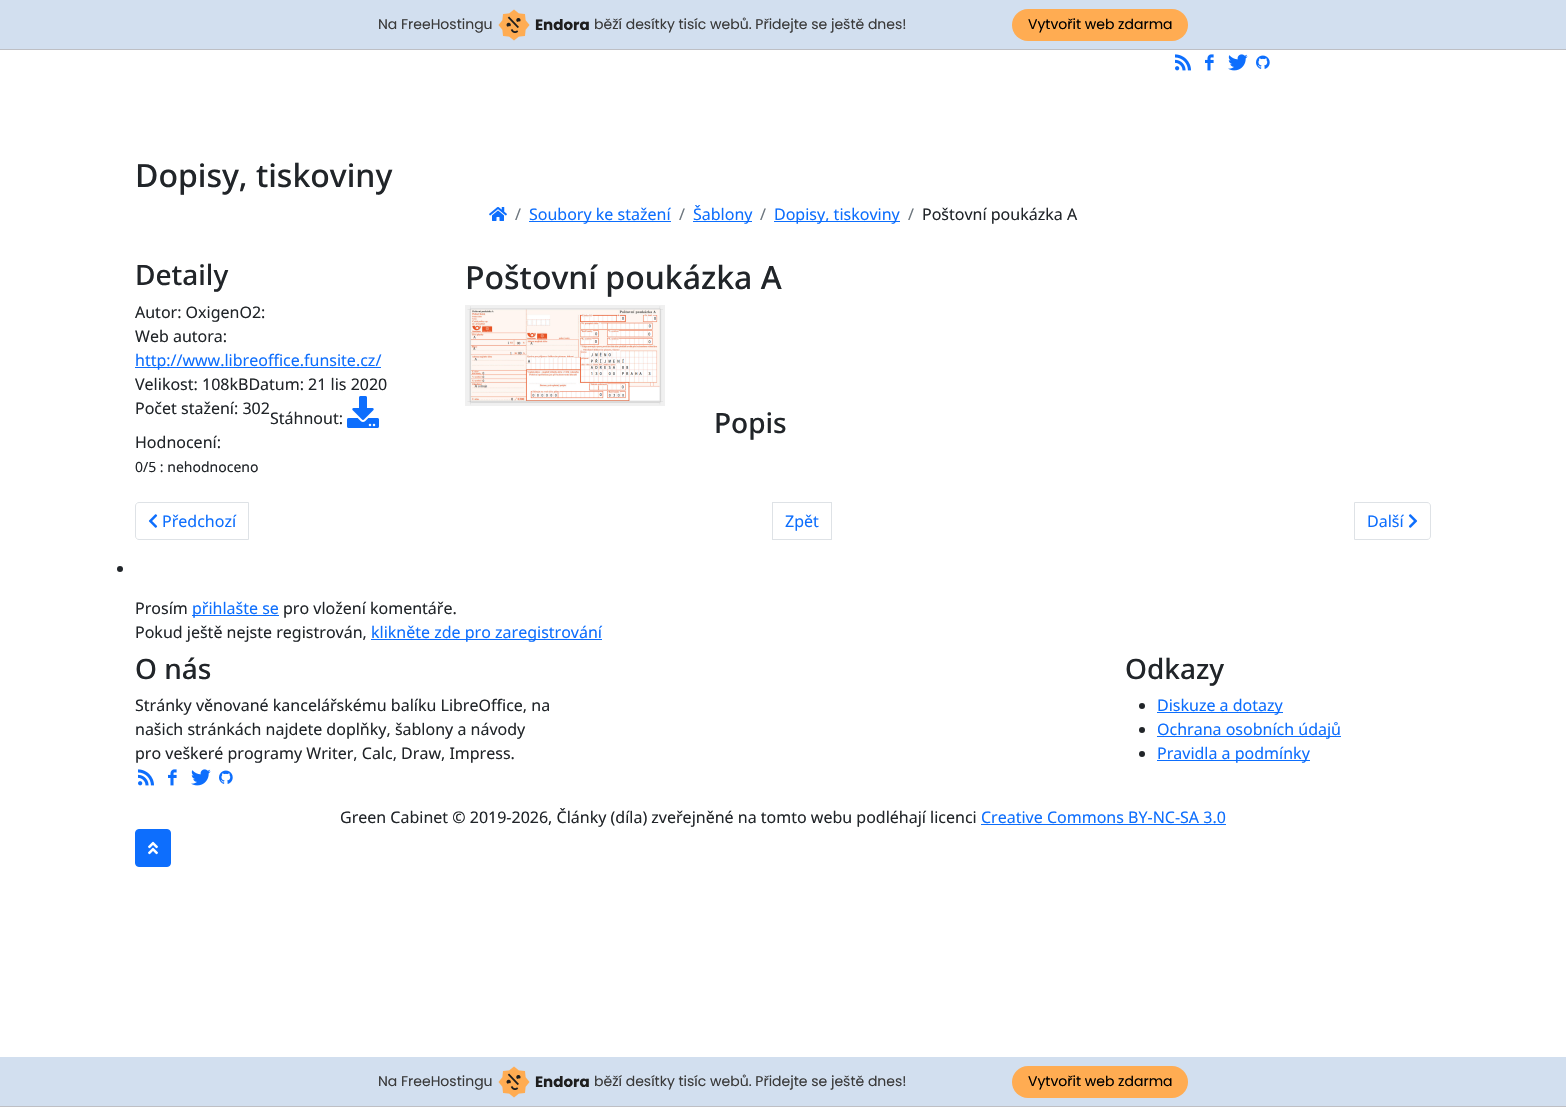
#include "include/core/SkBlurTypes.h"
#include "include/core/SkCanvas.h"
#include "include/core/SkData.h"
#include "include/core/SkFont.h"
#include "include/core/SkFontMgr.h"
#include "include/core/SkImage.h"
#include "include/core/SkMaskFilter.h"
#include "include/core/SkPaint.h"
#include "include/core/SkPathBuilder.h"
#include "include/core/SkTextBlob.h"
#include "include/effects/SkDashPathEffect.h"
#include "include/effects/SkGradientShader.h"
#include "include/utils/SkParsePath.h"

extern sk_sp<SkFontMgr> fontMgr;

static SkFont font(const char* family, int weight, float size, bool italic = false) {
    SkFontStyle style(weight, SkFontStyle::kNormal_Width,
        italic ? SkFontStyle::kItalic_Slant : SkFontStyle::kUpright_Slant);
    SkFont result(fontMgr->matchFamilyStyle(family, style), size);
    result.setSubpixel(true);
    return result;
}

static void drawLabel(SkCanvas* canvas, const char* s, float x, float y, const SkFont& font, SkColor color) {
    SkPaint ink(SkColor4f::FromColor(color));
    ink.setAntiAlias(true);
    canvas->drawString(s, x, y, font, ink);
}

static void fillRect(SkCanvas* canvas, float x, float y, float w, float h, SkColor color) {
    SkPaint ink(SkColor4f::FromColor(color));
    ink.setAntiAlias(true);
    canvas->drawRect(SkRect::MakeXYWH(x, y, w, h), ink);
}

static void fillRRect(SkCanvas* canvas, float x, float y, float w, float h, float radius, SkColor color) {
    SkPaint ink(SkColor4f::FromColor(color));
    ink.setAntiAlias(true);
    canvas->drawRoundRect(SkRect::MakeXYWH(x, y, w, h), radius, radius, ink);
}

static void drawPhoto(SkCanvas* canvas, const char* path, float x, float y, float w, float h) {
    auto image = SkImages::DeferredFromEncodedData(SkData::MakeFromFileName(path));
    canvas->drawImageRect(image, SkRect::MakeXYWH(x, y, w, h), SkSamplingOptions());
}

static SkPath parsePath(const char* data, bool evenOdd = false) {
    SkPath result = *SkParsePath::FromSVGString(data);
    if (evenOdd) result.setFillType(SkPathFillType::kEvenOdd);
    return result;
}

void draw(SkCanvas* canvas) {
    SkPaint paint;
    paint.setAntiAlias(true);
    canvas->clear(0xFFFFFFFF);
    fillRect(canvas, 0, 0, 1566, 49, 0xFFD2DFEF);
    fillRect(canvas, 0, 49, 1566, 1, 0xFFBEBFC4);
    SkFont font1 = font("Poppins", 400, 14);
    drawLabel(canvas, "Na FreeHostingu", 378, 29, font1, 0xFF3A3A3A);
    drawPhoto(canvas, "assets/img1.png", 498, 9, 32, 32);
    SkFont font2 = font("Poppins", 700, 15);
    drawLabel(canvas, "Endora", 535, 30, font2, 0xFF1E1E1E);
    drawLabel(canvas, "běží desítky tisíc webů. Přidejte se ještě dnes!", 594, 29, font1, 0xFF3A3A3A);
    fillRRect(canvas, 1012, 9, 176, 32, 16, 0xFFFFAC52);
    drawLabel(canvas, "Vytvořit web zdarma", 1028, 29, font1, 0xFF000000);
    drawPhoto(canvas, "assets/img2.png", 1175, 54, 16, 17);
    drawPhoto(canvas, "assets/img3.png", 1205, 54, 9, 17);
    drawPhoto(canvas, "assets/img4.png", 1228, 54, 20, 17);
    drawPhoto(canvas, "assets/img5.png", 1256, 55, 14, 14);
    SkFont font3 = font("Noto Sans", 500, 32);
    drawLabel(canvas, "Dopisy, tiskoviny", 135, 187, font3, 0xFF212529);
    drawPhoto(canvas, "assets/img6.png", 489, 207, 18, 14);
    SkFont font4 = font("Noto Sans", 400, 16);
    drawLabel(canvas, "/", 515, 220, font4, 0xFF6C757D);
    fillRect(canvas, 529, 221, 142, 1, 0xFF0D6EFD);
    drawLabel(canvas, "Soubory ke stažení", 529, 220, font4, 0xFF0D6EFD);
    drawLabel(canvas, "/", 679, 220, font4, 0xFF6C757D);
    fillRect(canvas, 693, 221, 59, 1, 0xFF0D6EFD);
    drawLabel(canvas, "Šablony", 693, 220, font4, 0xFF0D6EFD);
    drawLabel(canvas, "/", 760, 220, font4, 0xFF6C757D);
    fillRect(canvas, 774, 221, 126, 1, 0xFF0D6EFD);
    drawLabel(canvas, "Dopisy, tiskoviny", 774, 220, font4, 0xFF0D6EFD);
    drawLabel(canvas, "/", 908, 220, font4, 0xFF6C757D);
    drawLabel(canvas, "Poštovní poukázka A", 922, 220, font4, 0xFF212529);
    SkFont font5 = font("Noto Sans", 500, 28);
    drawLabel(canvas, "Detaily", 135, 285, font5, 0xFF212529);
    drawLabel(canvas, "Autor: OxigenO2:", 135, 318, font4, 0xFF212529);
    drawLabel(canvas, "Web autora:", 135, 342, font4, 0xFF212529);
    fillRect(canvas, 135, 367, 246, 1, 0xFF0D6EFD);
    drawLabel(canvas, "http://www.libreoffice.funsite.cz/", 135, 366, font4, 0xFF0D6EFD);
    drawLabel(canvas, "Velikost: 108kBDatum: 21 lis 2020", 135, 390, font4, 0xFF212529);
    drawLabel(canvas, "Počet stažení: 302", 135, 414, font4, 0xFF212529);
    drawLabel(canvas, "Stáhnout:", 270, 424, font4, 0xFF212529);
    drawPhoto(canvas, "assets/img7.png", 347, 396, 32, 32);
    drawLabel(canvas, "Hodnocení:", 135, 448, font4, 0xFF212529);
    SkFont font6 = font("Noto Sans", 400, 14);
    drawLabel(canvas, "0/5 : nehodnoceno", 135, 472, font6, 0xFF212529);
    drawLabel(canvas, "Poštovní poukázka A", 465, 289, font3, 0xFF212529);
    drawPhoto(canvas, "assets/img8.png", 465, 305, 200, 101);
    drawLabel(canvas, "Popis", 714, 433, font5, 0xFF212529);
    paint.setStroke(true);
    paint.setStrokeWidth(1);
    paint.setColor(0xFFDEE2E6);
    canvas->drawPath(parsePath("M139 502.5H248.5V539.5H139C137 539.5 135.5 538 135.5 536V506C135.5 504 137 502.5 139 502.5Z"), paint);
    drawPhoto(canvas, "assets/img9.png", 148, 514, 10, 14);
    drawLabel(canvas, "Předchozí", 162, 527, font4, 0xFF0D6EFD);
    canvas->drawRect(SkRect::MakeXYWH(772.5f, 502.5f, 59, 37), paint);
    drawLabel(canvas, "Zpět", 785, 527, font4, 0xFF0D6EFD);
    canvas->drawPath(parsePath("M1354.5 502.5H1427C1429 502.5 1430.5 504 1430.5 506V536C1430.5 538 1429 539.5 1427 539.5H1354.5Z"), paint);
    drawLabel(canvas, "Další", 1367, 527, font4, 0xFF0D6EFD);
    drawPhoto(canvas, "assets/img10.png", 1408, 514, 10, 14);
    paint.setStroke(false);
    paint.setColor(0xFF212529);
    canvas->drawCircle(120, 569, 3, paint);
    drawLabel(canvas, "Prosím", 135, 614, font4, 0xFF212529);
    fillRect(canvas, 192, 615, 87, 1, 0xFF0D6EFD);
    drawLabel(canvas, "přihlašte se", 192, 614, font4, 0xFF0D6EFD);
    drawLabel(canvas, "pro vložení komentáře.", 283, 614, font4, 0xFF212529);
    drawLabel(canvas, "Pokud ještě nejste registrován,", 135, 638, font4, 0xFF212529);
    fillRect(canvas, 371, 639, 231, 1, 0xFF0D6EFD);
    drawLabel(canvas, "klikněte zde pro zaregistrování", 371, 638, font4, 0xFF0D6EFD);
    drawLabel(canvas, "O nás", 135, 679, font5, 0xFF212529);
    drawLabel(canvas, "Stránky věnované kancelářskému balíku LibreOffice, na", 135, 711, font4, 0xFF212529);
    drawLabel(canvas, "našich stránkách najdete doplňky, šablony a návody", 135, 735, font4, 0xFF212529);
    drawLabel(canvas, "pro veškeré programy Writer, Calc, Draw, Impress.", 135, 759, font4, 0xFF212529);
    drawPhoto(canvas, "assets/img2.png", 138, 769, 16, 17);
    drawPhoto(canvas, "assets/img3.png", 168, 769, 9, 17);
    drawPhoto(canvas, "assets/img4.png", 191, 769, 20, 17);
    drawPhoto(canvas, "assets/img5.png", 219, 770, 14, 14);
    drawLabel(canvas, "Odkazy", 1125, 679, font5, 0xFF212529);
    canvas->drawCircle(1142, 706, 3, paint);
    fillRect(canvas, 1157, 712, 126, 1, 0xFF0D6EFD);
    drawLabel(canvas, "Diskuze a dotazy", 1157, 711, font4, 0xFF0D6EFD);
    canvas->drawCircle(1142, 730, 3, paint);
    fillRect(canvas, 1157, 736, 184, 1, 0xFF0D6EFD);
    drawLabel(canvas, "Ochrana osobních údajů", 1157, 735, font4, 0xFF0D6EFD);
    canvas->drawCircle(1142, 754, 3, paint);
    fillRect(canvas, 1157, 760, 153, 1, 0xFF0D6EFD);
    drawLabel(canvas, "Pravidla a podmínky", 1157, 759, font4, 0xFF0D6EFD);
    drawLabel(canvas, "Green Cabinet © 2019-2026, Články (díla) zveřejněné na tomto webu podléhají licenci", 340, 823, font4, 0xFF212529);
    drawLabel(canvas, "Creative Commons BY-NC-SA 3.0", 981, 823, font4, 0xFF0D6EFD);
    fillRect(canvas, 981, 824, 245, 1, 0xFF0D6EFD);
    paint.setColor(0xFF0D6EFD);
    canvas->drawRoundRect(SkRect::MakeXYWH(135.5f, 829.5f, 35, 37), 3.5f, 3.5f, paint);
    paint.setStroke(true);
    canvas->drawRoundRect(SkRect::MakeXYWH(135.5f, 829.5f, 35, 37), 3.5f, 3.5f, paint);
    drawPhoto(canvas, "assets/img11.png", 148, 841, 10, 14);
    fillRect(canvas, 0, 1057, 1566, 49, 0xFFD2DFEF);
    fillRect(canvas, 0, 1106, 1566, 1, 0xFFBEBFC4);
    drawLabel(canvas, "Na FreeHostingu", 378, 1086, font1, 0xFF3A3A3A);
    drawPhoto(canvas, "assets/img1.png", 498, 1066, 32, 32);
    drawLabel(canvas, "Endora", 535, 1087, font2, 0xFF1E1E1E);
    drawLabel(canvas, "běží desítky tisíc webů. Přidejte se ještě dnes!", 594, 1086, font1, 0xFF3A3A3A);
    fillRRect(canvas, 1012, 1066, 176, 32, 16, 0xFFFFAC52);
    drawLabel(canvas, "Vytvořit web zdarma", 1028, 1086, font1, 0xFF000000);
}
